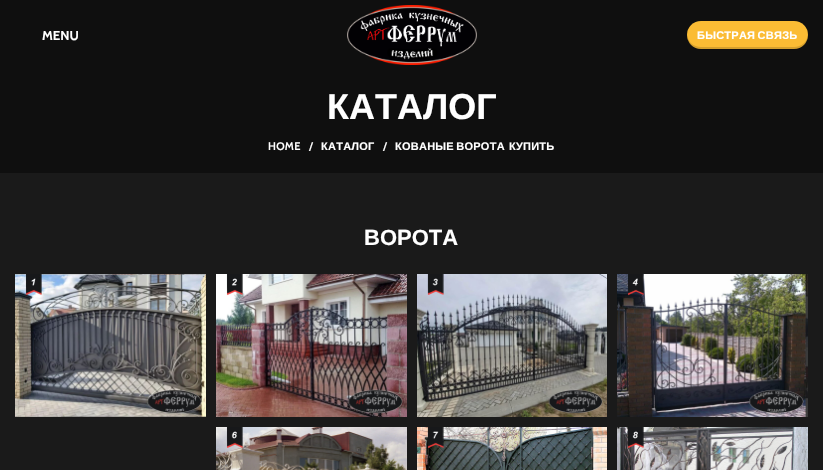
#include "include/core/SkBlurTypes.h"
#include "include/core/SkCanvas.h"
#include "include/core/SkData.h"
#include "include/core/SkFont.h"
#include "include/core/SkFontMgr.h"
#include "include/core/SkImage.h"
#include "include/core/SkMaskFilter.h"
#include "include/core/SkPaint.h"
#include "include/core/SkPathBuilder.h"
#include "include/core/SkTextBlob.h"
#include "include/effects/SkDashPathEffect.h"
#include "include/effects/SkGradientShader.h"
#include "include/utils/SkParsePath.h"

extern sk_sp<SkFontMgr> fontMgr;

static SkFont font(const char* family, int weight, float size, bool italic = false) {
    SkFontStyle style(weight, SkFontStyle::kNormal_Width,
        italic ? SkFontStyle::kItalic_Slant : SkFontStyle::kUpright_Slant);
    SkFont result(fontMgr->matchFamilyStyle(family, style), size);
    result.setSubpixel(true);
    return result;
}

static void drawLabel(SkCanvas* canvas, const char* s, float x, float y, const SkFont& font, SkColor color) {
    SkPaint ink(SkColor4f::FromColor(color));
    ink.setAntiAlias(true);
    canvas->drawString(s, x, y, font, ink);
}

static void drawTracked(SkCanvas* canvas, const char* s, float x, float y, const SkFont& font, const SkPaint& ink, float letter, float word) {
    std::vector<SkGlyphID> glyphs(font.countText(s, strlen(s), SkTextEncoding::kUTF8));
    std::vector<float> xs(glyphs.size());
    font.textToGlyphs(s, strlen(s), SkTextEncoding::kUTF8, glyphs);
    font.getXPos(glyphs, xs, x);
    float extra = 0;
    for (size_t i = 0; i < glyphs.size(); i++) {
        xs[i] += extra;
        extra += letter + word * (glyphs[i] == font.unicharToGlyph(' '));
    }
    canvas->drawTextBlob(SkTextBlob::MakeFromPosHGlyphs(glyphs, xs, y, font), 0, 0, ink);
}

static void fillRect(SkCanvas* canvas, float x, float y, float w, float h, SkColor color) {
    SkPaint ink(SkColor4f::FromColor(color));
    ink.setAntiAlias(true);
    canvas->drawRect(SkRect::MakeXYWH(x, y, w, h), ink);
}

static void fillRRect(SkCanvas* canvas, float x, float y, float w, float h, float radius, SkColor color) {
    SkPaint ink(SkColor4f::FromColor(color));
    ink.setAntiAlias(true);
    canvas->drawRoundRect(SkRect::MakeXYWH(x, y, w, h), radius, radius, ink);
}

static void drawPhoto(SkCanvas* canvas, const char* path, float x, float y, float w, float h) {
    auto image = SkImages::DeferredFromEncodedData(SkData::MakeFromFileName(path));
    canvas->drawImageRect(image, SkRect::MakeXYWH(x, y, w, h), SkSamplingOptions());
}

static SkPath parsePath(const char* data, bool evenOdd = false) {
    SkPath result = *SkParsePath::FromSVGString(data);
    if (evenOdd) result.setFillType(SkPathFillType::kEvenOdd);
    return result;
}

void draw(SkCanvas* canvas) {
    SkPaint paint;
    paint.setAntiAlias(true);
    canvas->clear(0xFF1A1A1A);
    fillRect(canvas, 0, 0, 823, 173, 0xFF0F0F0F);
    SkFont font1 = font("Cabin", 700, 13);
    drawLabel(canvas, "MENU", 42, 40, font1, 0xFFFFFFFF);
    drawPhoto(canvas, "assets/img1.png", 347, 5, 130, 60);
    fillRRect(canvas, 687, 21, 121, 28, 14, 0xFFFBBC34);
    paint.setColor(0x26000000);
    canvas->drawPath(parsePath("M687 34V35C687 43 693 49 701 49H794C802 49 808 43 808 35V34C807 42 802 47 794 47H701C693 47 688 42 687 34Z"), paint);
    SkFont font2 = font("Liberation Sans", 700, 11);
    paint.setColor(0xFFFFFFFF);
    drawTracked(canvas, "БЫСТРАЯ СВЯЗЬ", 697, 39, font2, paint, 0.25f, -1);
    SkFont font3 = font("Liberation Sans", 700, 36);
    drawLabel(canvas, "КАТАЛОГ", 327, 119, font3, 0xFFFFFFFF);
    SkFont font4 = font("Cabin", 600, 11);
    drawTracked(canvas, "HOME", 268, 150, font4, paint, 0.25f, 0);
    drawTracked(canvas, "/", 309, 150, font4, paint, 0.25f, 0);
    drawTracked(canvas, "КАТАЛОГ", 321, 150, font2, paint, 0.25f, 0);
    drawTracked(canvas, "/", 383, 150, font4, paint, 0.25f, 0);
    drawTracked(canvas, "КОВАНЫЕ ВОРОТА", 395, 150, font2, paint, 0.25f, -1);
    drawTracked(canvas, "КУПИТЬ", 509, 150, font2, paint, 0.25f, 0);
    SkFont font5 = font("Liberation Sans", 700, 22);
    drawLabel(canvas, "ВОРОТА", 364, 245, font5, 0xFFFFFFFF);
    drawPhoto(canvas, "assets/img2.png", 15, 274, 191, 143);
    drawPhoto(canvas, "assets/img3.png", 216, 274, 191, 143);
    drawPhoto(canvas, "assets/img4.png", 417, 274, 190, 143);
    drawPhoto(canvas, "assets/img5.png", 617, 274, 191, 143);
    drawPhoto(canvas, "assets/img6.png", 216, 427, 191, 43);
    drawPhoto(canvas, "assets/img7.png", 417, 427, 190, 43);
    drawPhoto(canvas, "assets/img8.png", 617, 427, 191, 43);
}
